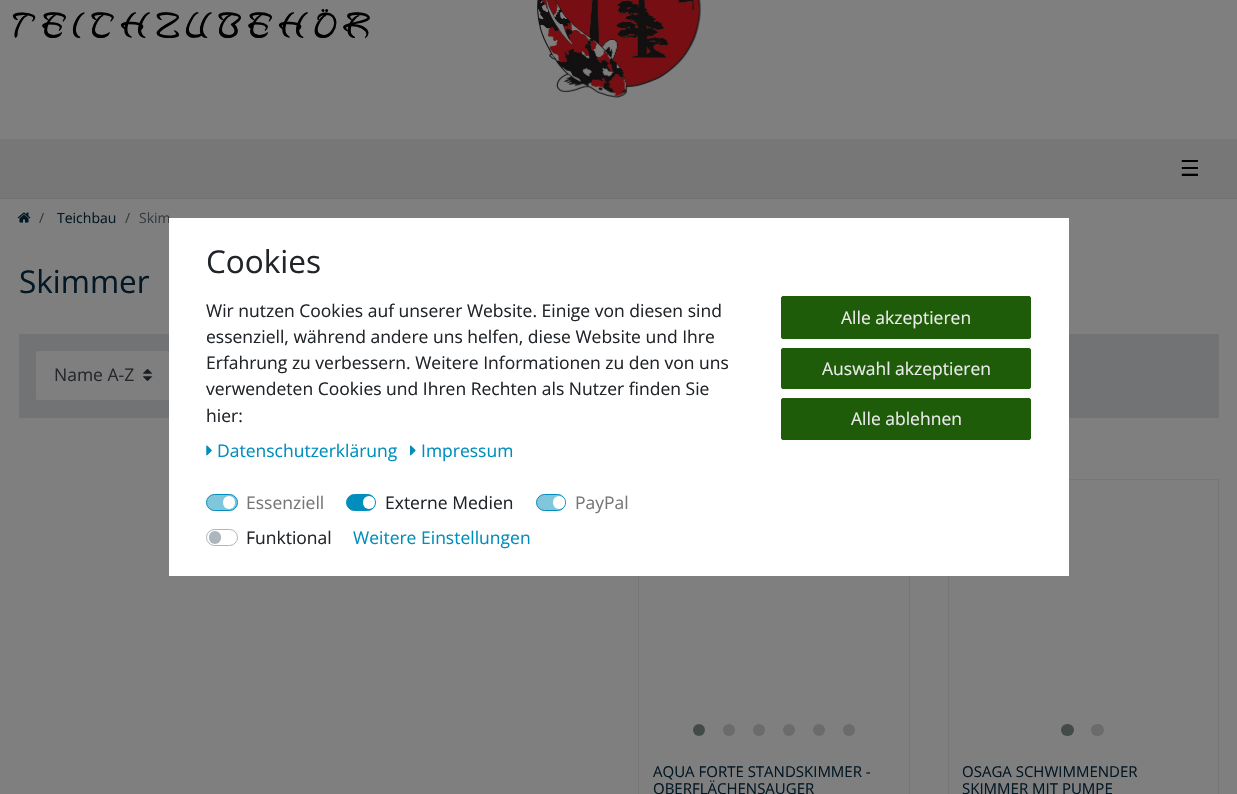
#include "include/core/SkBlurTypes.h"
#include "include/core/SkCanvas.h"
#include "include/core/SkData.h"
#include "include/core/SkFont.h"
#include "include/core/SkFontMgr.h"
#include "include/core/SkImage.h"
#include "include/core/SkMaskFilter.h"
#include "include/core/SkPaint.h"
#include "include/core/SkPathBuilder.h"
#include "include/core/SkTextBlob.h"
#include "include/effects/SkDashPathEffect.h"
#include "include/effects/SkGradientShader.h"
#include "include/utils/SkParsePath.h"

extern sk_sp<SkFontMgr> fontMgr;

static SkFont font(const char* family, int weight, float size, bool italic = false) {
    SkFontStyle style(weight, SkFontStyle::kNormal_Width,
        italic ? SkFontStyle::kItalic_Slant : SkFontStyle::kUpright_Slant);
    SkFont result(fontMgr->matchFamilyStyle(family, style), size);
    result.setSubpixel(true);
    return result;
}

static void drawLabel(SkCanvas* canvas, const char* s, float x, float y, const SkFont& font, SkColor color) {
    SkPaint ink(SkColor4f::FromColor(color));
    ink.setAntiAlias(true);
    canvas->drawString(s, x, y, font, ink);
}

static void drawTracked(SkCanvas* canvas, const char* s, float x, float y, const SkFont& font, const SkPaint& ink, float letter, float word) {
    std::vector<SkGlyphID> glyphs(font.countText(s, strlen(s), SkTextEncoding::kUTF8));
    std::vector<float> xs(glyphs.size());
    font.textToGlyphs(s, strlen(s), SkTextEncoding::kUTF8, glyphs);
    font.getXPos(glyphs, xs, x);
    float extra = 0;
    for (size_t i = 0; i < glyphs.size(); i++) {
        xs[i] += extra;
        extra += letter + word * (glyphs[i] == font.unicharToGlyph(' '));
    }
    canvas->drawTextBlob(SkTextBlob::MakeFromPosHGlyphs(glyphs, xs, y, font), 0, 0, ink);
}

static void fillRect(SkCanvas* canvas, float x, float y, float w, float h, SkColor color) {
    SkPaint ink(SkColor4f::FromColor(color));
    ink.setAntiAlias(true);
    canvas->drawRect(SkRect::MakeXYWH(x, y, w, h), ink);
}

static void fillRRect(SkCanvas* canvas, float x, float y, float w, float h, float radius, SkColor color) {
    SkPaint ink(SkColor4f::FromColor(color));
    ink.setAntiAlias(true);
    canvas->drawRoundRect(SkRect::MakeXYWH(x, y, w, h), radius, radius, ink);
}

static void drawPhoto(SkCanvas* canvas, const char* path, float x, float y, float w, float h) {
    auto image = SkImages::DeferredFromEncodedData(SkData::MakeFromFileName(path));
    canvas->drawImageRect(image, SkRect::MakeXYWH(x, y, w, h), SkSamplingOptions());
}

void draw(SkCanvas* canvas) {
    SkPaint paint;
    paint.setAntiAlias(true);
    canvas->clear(0xFFFFFFFF);
    SkFont font1 = font("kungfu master", 700, 37.5f);
    paint.setColor(0xFF000000);
    drawTracked(canvas, "Teichzubehör", 12, 38, font1, paint, 6.25f, 0);
    drawPhoto(canvas, "assets/img1.png", 537, 0, 164, 98);
    fillRect(canvas, 0, 139, 1237, 59, 0xFFEFEFEF);
    fillRect(canvas, 0, 198, 1237, 1, 0xFFDEE2E6);
    SkFont font2 = font("DejaVu Sans", 400, 22);
    drawLabel(canvas, "☰", 1180, 176, font2, 0xFF000000);
    drawPhoto(canvas, "assets/img2.png", 17, 212, 14, 11);
    SkFont font3 = font("Open Sans", 400, 14);
    drawLabel(canvas, "/", 39, 223, font3, 0xFF6C757D);
    drawLabel(canvas, "Teichbau", 57, 223, font3, 0xFF062E47);
    drawLabel(canvas, "/", 125, 223, font3, 0xFF6C757D);
    drawLabel(canvas, "Skim", 139, 223, font3, 0xFF6C757D);
    SkFont font4 = font("Open Sans", 400, 31.5f);
    drawLabel(canvas, "Skimmer", 19, 293, font4, 0xFF062E47);
    fillRect(canvas, 19, 334, 1200, 84, 0xFFE3E7EB);
    fillRRect(canvas, 36, 351, 134, 49, 2, 0xFFFFFFFF);
    drawPhoto(canvas, "assets/img3.png", 143, 369, 10, 12);
    SkFont font5 = font("Open Sans", 400, 17.5f);
    drawLabel(canvas, "Name A-Z", 54, 381, font5, 0xFF495057);
    paint.setStroke(true);
    paint.setStrokeWidth(1);
    paint.setColor(0xFFEFEFEF);
    canvas->drawRect(SkRect::MakeXYWH(638.5f, 479.5f, 271, 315), paint);
    paint.setStroke(false);
    paint.setColor(0xFF869791);
    canvas->drawCircle(699, 730, 6, paint);
    paint.setColor(0xFFD6D6D6);
    canvas->drawCircle(729, 730, 6, paint);
    canvas->drawCircle(759, 730, 6, paint);
    canvas->drawCircle(789, 730, 6, paint);
    canvas->drawCircle(819, 730, 6, paint);
    canvas->drawCircle(849, 730, 6, paint);
    SkFont font6 = font("Open Sans", 400, 15);
    drawLabel(canvas, "AQUA FORTE STANDSKIMMER -", 653, 777, font6, 0xFF062E47);
    drawLabel(canvas, "OBERFLÄCHENSAUGER", 653, 794, font6, 0xFF062E47);
    paint.setStroke(true);
    paint.setColor(0xFFEFEFEF);
    canvas->drawRect(SkRect::MakeXYWH(948.5f, 479.5f, 270, 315), paint);
    fillRRect(canvas, 1061, 724, 13, 12, 6, 0xFF869791);
    fillRRect(canvas, 1091, 724, 13, 12, 6, 0xFFD6D6D6);
    drawLabel(canvas, "OSAGA SCHWIMMENDER", 962, 777, font6, 0xFF062E47);
    drawLabel(canvas, "SKIMMER MIT PUMPE", 962, 794, font6, 0xFF062E47);
    paint.setStrokeWidth(2033);
    paint.setColor(0x80000000);
    canvas->drawRect(SkRect::MakeXYWH(-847.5f, -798.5f, 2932, 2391), paint);
    fillRect(canvas, 169, 218, 900, 358, 0xFFFFFFFF);
    drawLabel(canvas, "Cookies", 206, 273, font4, 0xFF212529);
    drawLabel(canvas, "Wir nutzen Cookies auf unserer Website. Einige von diesen sind", 206, 317, font5, 0xFF212529);
    drawLabel(canvas, "essenziell, während andere uns helfen, diese Website und Ihre", 206, 343, font5, 0xFF212529);
    drawLabel(canvas, "Erfahrung zu verbessern. Weitere Informationen zu den von uns", 206, 369, font5, 0xFF212529);
    drawLabel(canvas, "verwendeten Cookies und Ihren Rechten als Nutzer finden Sie", 206, 395, font5, 0xFF212529);
    drawLabel(canvas, "hier:", 206, 422, font5, 0xFF212529);
    drawPhoto(canvas, "assets/img4.png", 206, 445, 6, 11);
    drawLabel(canvas, "Datenschutzerklärung", 217, 457, font5, 0xFF008EBD);
    drawPhoto(canvas, "assets/img5.png", 410, 445, 6, 11);
    drawLabel(canvas, "Impressum", 421, 457, font5, 0xFF008EBD);
    paint.setStroke(false);
    paint.setColor(0xFF80C7DE);
    canvas->drawRoundRect(SkRect::MakeXYWH(206.5f, 494.5f, 31, 16), 8, 8, paint);
    paint.setStroke(true);
    paint.setStrokeWidth(1);
    paint.setColor(0xFF008EBD);
    canvas->drawRoundRect(SkRect::MakeXYWH(206.5f, 494.5f, 31, 16), 8, 8, paint);
    drawLabel(canvas, "Essenziell", 246, 509, font5, 0xFF767676);
    fillRRect(canvas, 223, 496, 12, 13, 6, 0xFFFFFFFF);
    paint.setStroke(false);
    canvas->drawRoundRect(SkRect::MakeXYWH(346.5f, 494.5f, 29, 16), 8, 8, paint);
    paint.setStroke(true);
    canvas->drawRoundRect(SkRect::MakeXYWH(346.5f, 494.5f, 29, 16), 8, 8, paint);
    drawLabel(canvas, "Externe Medien", 385, 509, font5, 0xFF212529);
    fillRRect(canvas, 363, 496, 12, 13, 6, 0xFFFFFFFF);
    paint.setStroke(false);
    paint.setColor(0xFF80C7DE);
    canvas->drawRoundRect(SkRect::MakeXYWH(536.5f, 494.5f, 29, 16), 8, 8, paint);
    paint.setStroke(true);
    paint.setColor(0xFF008EBD);
    canvas->drawRoundRect(SkRect::MakeXYWH(536.5f, 494.5f, 29, 16), 8, 8, paint);
    drawLabel(canvas, "PayPal", 575, 509, font5, 0xFF767676);
    fillRRect(canvas, 553, 496, 12, 13, 6, 0xFFFFFFFF);
    paint.setColor(0xFFADB5BD);
    canvas->drawRoundRect(SkRect::MakeXYWH(206.5f, 529.5f, 31, 16), 8, 8, paint);
    drawLabel(canvas, "Funktional", 246, 544, font5, 0xFF212529);
    fillRRect(canvas, 209, 531, 12, 13, 6, 0xFFADB5BD);
    drawLabel(canvas, "Weitere Einstellungen", 353, 544, font5, 0xFF008EBD);
    paint.setStroke(false);
    paint.setColor(0xFF1F5C09);
    canvas->drawRoundRect(SkRect::MakeXYWH(781.5f, 296.5f, 249, 42), 1.5f, 1.5f, paint);
    paint.setStroke(true);
    canvas->drawRoundRect(SkRect::MakeXYWH(781.5f, 296.5f, 249, 42), 1.5f, 1.5f, paint);
    drawLabel(canvas, "Alle akzeptieren", 841, 324, font5, 0xFFEBEBEB);
    paint.setStroke(false);
    canvas->drawRoundRect(SkRect::MakeXYWH(781.5f, 348.5f, 249, 40), 1.5f, 1.5f, paint);
    paint.setStroke(true);
    canvas->drawRoundRect(SkRect::MakeXYWH(781.5f, 348.5f, 249, 40), 1.5f, 1.5f, paint);
    drawLabel(canvas, "Auswahl akzeptieren", 822, 375, font5, 0xFFEBEBEB);
    paint.setStroke(false);
    canvas->drawRoundRect(SkRect::MakeXYWH(781.5f, 398.5f, 249, 41), 1.5f, 1.5f, paint);
    paint.setStroke(true);
    canvas->drawRoundRect(SkRect::MakeXYWH(781.5f, 398.5f, 249, 41), 1.5f, 1.5f, paint);
    drawLabel(canvas, "Alle ablehnen", 851, 425, font5, 0xFFEBEBEB);
}
